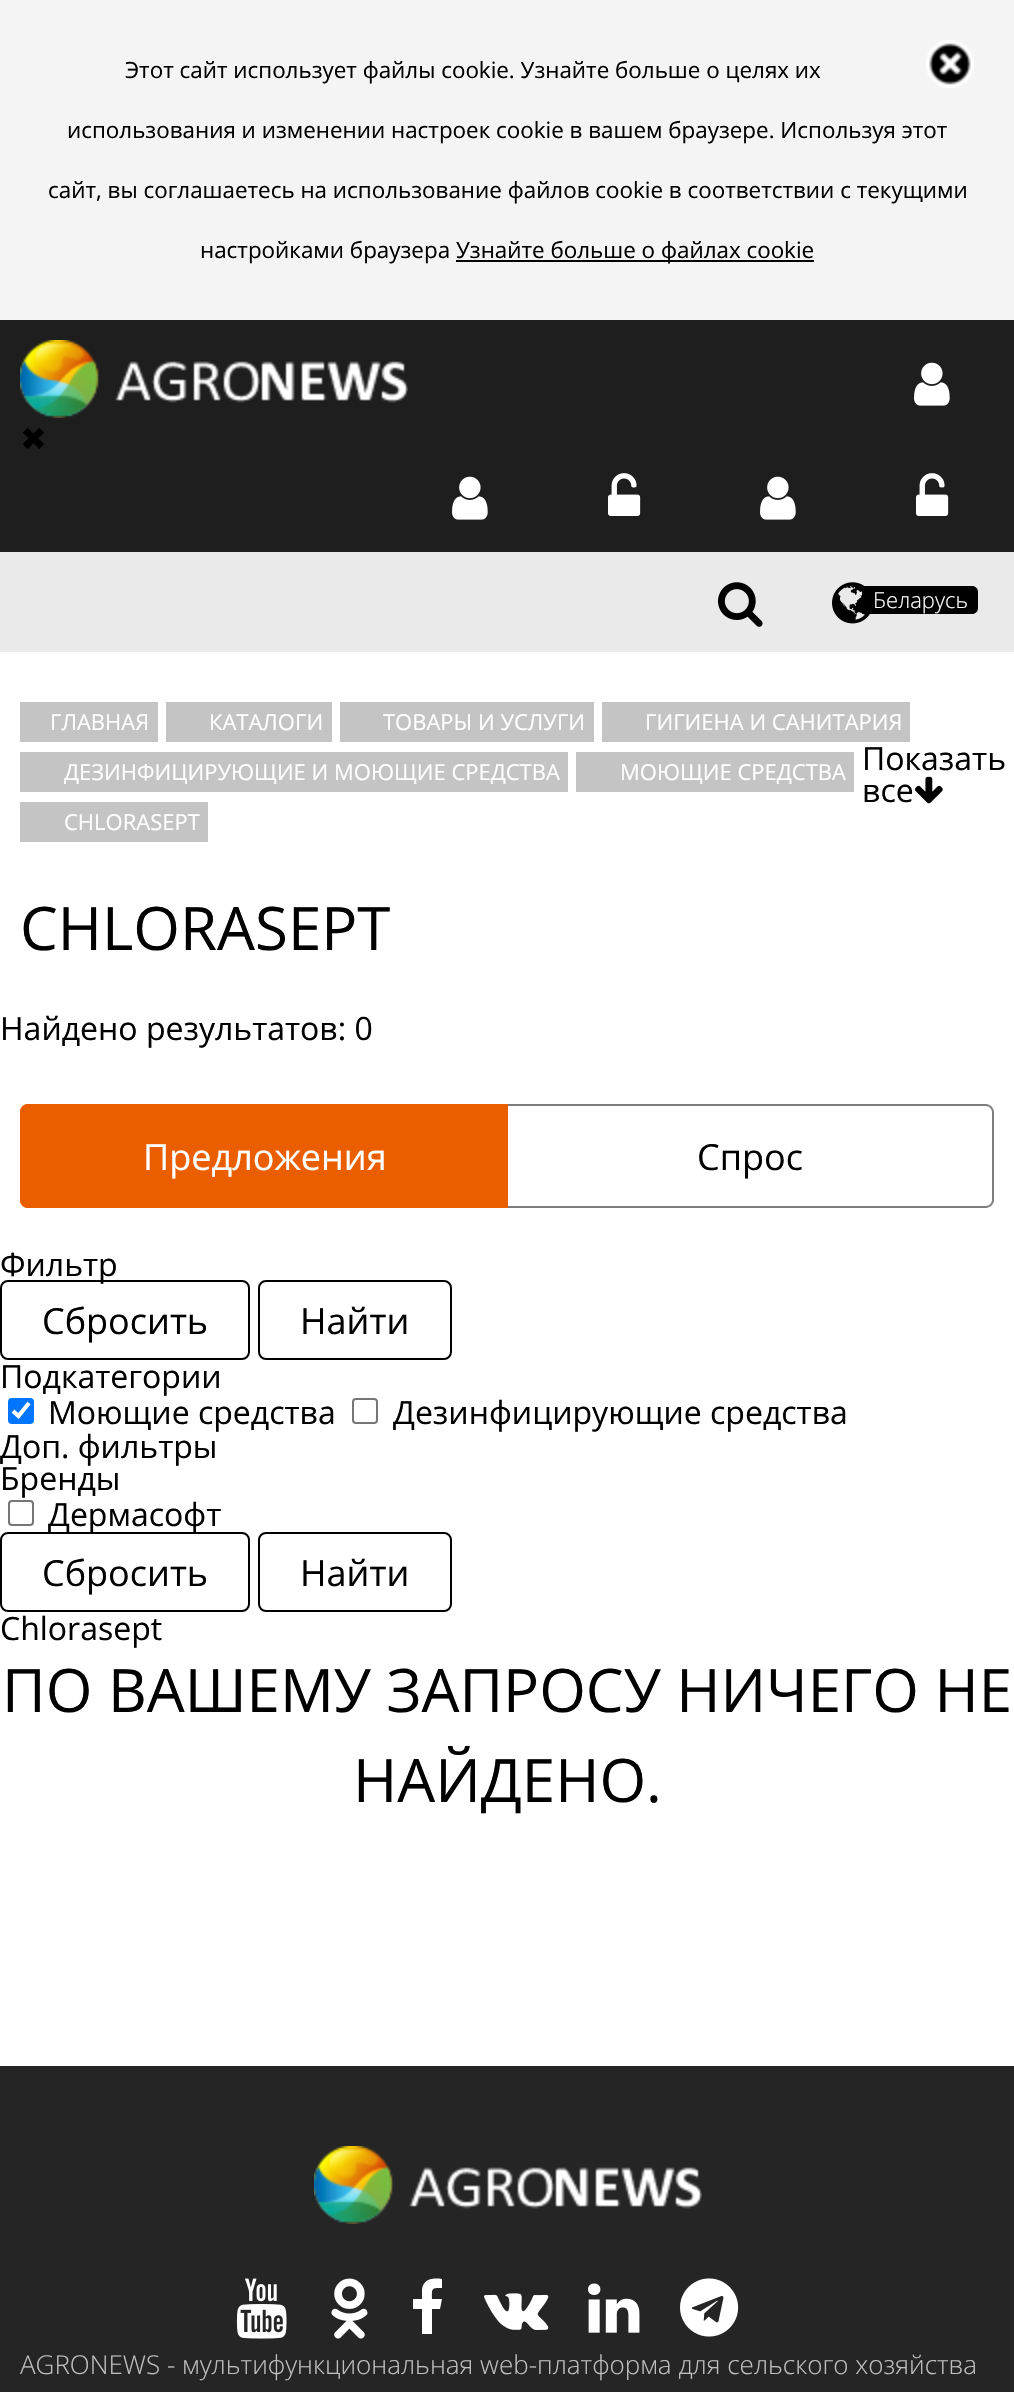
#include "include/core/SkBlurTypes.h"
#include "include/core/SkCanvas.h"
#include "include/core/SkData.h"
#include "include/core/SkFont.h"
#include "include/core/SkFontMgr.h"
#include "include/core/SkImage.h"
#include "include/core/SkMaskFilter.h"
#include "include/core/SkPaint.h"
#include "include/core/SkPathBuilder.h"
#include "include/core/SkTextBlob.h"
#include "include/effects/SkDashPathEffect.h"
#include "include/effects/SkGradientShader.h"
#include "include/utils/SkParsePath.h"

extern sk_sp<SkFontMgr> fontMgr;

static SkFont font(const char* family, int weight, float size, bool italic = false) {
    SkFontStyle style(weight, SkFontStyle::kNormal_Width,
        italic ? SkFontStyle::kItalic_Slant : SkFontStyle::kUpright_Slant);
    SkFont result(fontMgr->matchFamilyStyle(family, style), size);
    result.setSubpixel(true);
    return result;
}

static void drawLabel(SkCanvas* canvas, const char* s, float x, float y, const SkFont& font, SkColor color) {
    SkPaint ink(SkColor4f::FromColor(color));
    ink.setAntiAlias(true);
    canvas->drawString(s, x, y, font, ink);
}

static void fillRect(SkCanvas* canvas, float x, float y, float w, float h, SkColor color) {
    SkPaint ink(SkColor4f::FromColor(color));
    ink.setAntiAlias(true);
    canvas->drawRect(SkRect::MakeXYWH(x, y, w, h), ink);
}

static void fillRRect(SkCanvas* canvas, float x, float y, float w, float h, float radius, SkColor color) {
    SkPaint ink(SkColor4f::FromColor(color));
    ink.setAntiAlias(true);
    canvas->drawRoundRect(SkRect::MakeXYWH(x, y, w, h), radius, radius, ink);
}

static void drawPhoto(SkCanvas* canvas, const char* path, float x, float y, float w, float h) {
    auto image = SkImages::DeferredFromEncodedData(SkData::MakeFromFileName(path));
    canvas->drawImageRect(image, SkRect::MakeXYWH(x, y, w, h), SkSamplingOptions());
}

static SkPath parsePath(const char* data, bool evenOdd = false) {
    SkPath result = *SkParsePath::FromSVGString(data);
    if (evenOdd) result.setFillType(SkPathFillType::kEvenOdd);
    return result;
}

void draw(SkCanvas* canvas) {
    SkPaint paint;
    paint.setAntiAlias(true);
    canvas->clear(0xFFFFFFFF);
    fillRect(canvas, 0, 0, 1014, 320, 0xFFF4F4F4);
    drawPhoto(canvas, "assets/img1.png", 926, 40, 48, 48);
    SkFont font1 = font("Open Sans", 400, 22.4f);
    drawLabel(canvas, "Этот сайт использует файлы cookie. Узнайте больше о целях их", 125, 78, font1, 0xFF000000);
    drawLabel(canvas, "использования и изменении настроек cookie в вашем браузере. Используя этот", 67, 138, font1, 0xFF000000);
    drawLabel(canvas, "сайт, вы соглашаетесь на использование файлов cookie в соответствии с текущими", 48, 198, font1, 0xFF000000);
    drawLabel(canvas, "настройками браузера", 200, 258, font1, 0xFF000000);
    fillRect(canvas, 456, 260, 358, 2, 0xFF000000);
    drawLabel(canvas, "Узнайте больше о файлах cookie", 456, 258, font1, 0xFF000000);
    fillRect(canvas, 0, 320, 1014, 232, 0xFF1E1E1E);
    drawPhoto(canvas, "assets/img2.png", 20, 340, 388, 78);
    drawPhoto(canvas, "assets/img3.png", 914, 362, 36, 44);
    SkFont font2 = font("DejaVu Sans", 400, 32);
    drawLabel(canvas, "✖", 20, 450, font2, 0xFF000000);
    drawPhoto(canvas, "assets/img3.png", 760, 476, 36, 44);
    drawPhoto(canvas, "assets/img4.png", 916, 473, 33, 43);
    drawPhoto(canvas, "assets/img3.png", 452, 476, 36, 44);
    drawPhoto(canvas, "assets/img4.png", 608, 473, 33, 43);
    fillRect(canvas, 0, 552, 1014, 100, 0xFFEAEAEA);
    drawPhoto(canvas, "assets/img5.png", 718, 582, 45, 45);
    drawPhoto(canvas, "assets/img6.png", 832, 582, 38, 42);
    paint.setColor(0xFF000000);
    canvas->drawPath(parsePath("M862 586H972C975.5 586 978 588.5 978 592V608C978 611.5 975.5 614 972 614H862Z"), paint);
    SkFont font3 = font("Open Sans", 300, 22);
    drawLabel(canvas, "Беларусь", 873, 608, font3, 0xFFFFFFFF);
    fillRect(canvas, 20, 702, 138, 40, 0xFFC4C4C4);
    SkFont font4 = font("Open Sans", 400, 22);
    drawLabel(canvas, "ГЛАВНАЯ", 50, 730, font4, 0xFFFFFFFF);
    fillRect(canvas, 166, 702, 166, 40, 0xFFC4C4C4);
    drawLabel(canvas, "КАТАЛОГИ", 209, 730, font4, 0xFFFFFFFF);
    fillRect(canvas, 340, 702, 254, 40, 0xFFC4C4C4);
    drawLabel(canvas, "ТОВАРЫ И УСЛУГИ", 383, 730, font4, 0xFFFFFFFF);
    fillRect(canvas, 602, 702, 308, 40, 0xFFC4C4C4);
    drawLabel(canvas, "ГИГИЕНА И САНИТАРИЯ", 645, 730, font4, 0xFFFFFFFF);
    fillRect(canvas, 20, 752, 548, 40, 0xFFC4C4C4);
    drawLabel(canvas, "ДЕЗИНФИЦИРУЮЩИЕ И МОЮЩИЕ СРЕДСТВА", 64, 780, font4, 0xFFFFFFFF);
    fillRect(canvas, 576, 752, 278, 40, 0xFFC4C4C4);
    drawLabel(canvas, "МОЮЩИЕ СРЕДСТВА", 620, 780, font4, 0xFFFFFFFF);
    SkFont font5 = font("Open Sans", 400, 32);
    drawLabel(canvas, "Показать", 862, 770, font5, 0xFF000000);
    drawLabel(canvas, "все", 862, 802, font5, 0xFF000000);
    drawPhoto(canvas, "assets/img7.png", 915, 776, 28, 28);
    fillRect(canvas, 20, 802, 188, 40, 0xFFC4C4C4);
    drawLabel(canvas, "CHLORASEPT", 64, 830, font4, 0xFFFFFFFF);
    SkFont font6 = font("Open Sans", 400, 60);
    drawLabel(canvas, "CHLORASEPT", 20, 950, font6, 0xFF000000);
    drawLabel(canvas, "Найдено результатов: 0", 0, 1040, font5, 0xFF000000);
    paint.setColor(0xFFEA5E00);
    canvas->drawPath(parsePath("M28 1104H508V1208H28C23.5 1208 20 1204.5 20 1200V1112C20 1107.5 23.5 1104 28 1104Z"), paint);
    canvas->drawPath(parsePath("M28 1104H508V1208H28C24 1208 20 1204 20 1200V1112C20 1108 24 1104 28 1104ZM28 1106H508V1206H28C25 1206 22 1203 22 1200V1112C22 1109 25 1106 28 1106Z", true), paint);
    SkFont font7 = font("Open Sans", 400, 36);
    drawLabel(canvas, "Предложения", 143, 1170, font7, 0xFFFFFFFF);
    paint.setColor(0xFF7E7E7E);
    canvas->drawPath(parsePath("M508 1104H986C990 1104 994 1108 994 1112V1200C994 1204 990 1208 986 1208H508ZM508 1106H986C989 1106 992 1109 992 1112V1200C992 1203 989 1206 986 1206H508Z", true), paint);
    drawLabel(canvas, "Спрос", 697, 1170, font7, 0xFF000000);
    drawLabel(canvas, "Фильтр", 0, 1276, font5, 0xFF000000);
    paint.setStroke(true);
    paint.setStrokeWidth(2);
    paint.setColor(0xFF000000);
    canvas->drawRoundRect(SkRect::MakeXYWH(1, 1281, 248, 78), 7, 7, paint);
    drawLabel(canvas, "Сбросить", 42, 1334, font7, 0xFF000000);
    canvas->drawRoundRect(SkRect::MakeXYWH(259, 1281, 192, 78), 7, 7, paint);
    drawLabel(canvas, "Найти", 300, 1334, font7, 0xFF000000);
    drawLabel(canvas, "Подкатегории", 0, 1388, font5, 0xFF000000);
    fillRRect(canvas, 8, 1398, 26, 26, 4, 0xFF0075FF);
    paint.setStrokeWidth(4.2f);
    paint.setColor(0xFFFFFFFF);
    canvas->drawPath(parsePath("M13 1411L18.5 1416L29 1403"), paint);
    drawLabel(canvas, "Моющие средства", 48, 1424, font5, 0xFF000000);
    paint.setStrokeWidth(2);
    paint.setColor(0xFF767676);
    canvas->drawRoundRect(SkRect::MakeXYWH(353, 1399, 24, 24), 3, 3, paint);
    drawLabel(canvas, "Дезинфицирующие средства", 393, 1424, font5, 0xFF000000);
    drawLabel(canvas, "Доп. фильтры", 0, 1458, font5, 0xFF000000);
    drawLabel(canvas, "Бренды", 0, 1490, font5, 0xFF000000);
    canvas->drawRoundRect(SkRect::MakeXYWH(9, 1501, 24, 24), 3, 3, paint);
    drawLabel(canvas, "Дермасофт", 48, 1526, font5, 0xFF000000);
    paint.setColor(0xFF000000);
    canvas->drawRoundRect(SkRect::MakeXYWH(1, 1533, 248, 78), 7, 7, paint);
    drawLabel(canvas, "Сбросить", 42, 1586, font7, 0xFF000000);
    canvas->drawRoundRect(SkRect::MakeXYWH(259, 1533, 192, 78), 7, 7, paint);
    drawLabel(canvas, "Найти", 300, 1586, font7, 0xFF000000);
    drawLabel(canvas, "Chlorasept", 0, 1640, font5, 0xFF000000);
    drawLabel(canvas, "ПО ВАШЕМУ ЗАПРОСУ НИЧЕГО НЕ", 2, 1712, font6, 0xFF000000);
    drawLabel(canvas, "НАЙДЕНО.", 353, 1802, font6, 0xFF000000);
    fillRect(canvas, 0, 2066, 1014, 326, 0xFF252525);
    drawPhoto(canvas, "assets/img8.png", 314, 2146, 388, 78);
    drawPhoto(canvas, "assets/img9.png", 236, 2278, 51, 61);
    drawPhoto(canvas, "assets/img10.png", 331, 2278, 37, 61);
    paint.setStroke(false);
    paint.setColor(0xFFFFFFFF);
    canvas->drawPath(parsePath("M442 2279V2288C431 2288 432 2288 432 2299H442L440 2309H432V2334H422V2309H413V2299H422V2289C424 2278 434 2278 442 2279Z"), paint);
    drawPhoto(canvas, "assets/img11.png", 484, 2293, 65, 37);
    drawPhoto(canvas, "assets/img12.png", 588, 2283, 52, 50);
    drawPhoto(canvas, "assets/img13.png", 680, 2278, 59, 59);
    SkFont font8 = font("Open Sans", 300, 26);
    drawLabel(canvas, "AGRONEWS - мультифункциональная web-платформа для сельского хозяйства", 20, 2374, font8, 0xFFBFBFBF);
}
